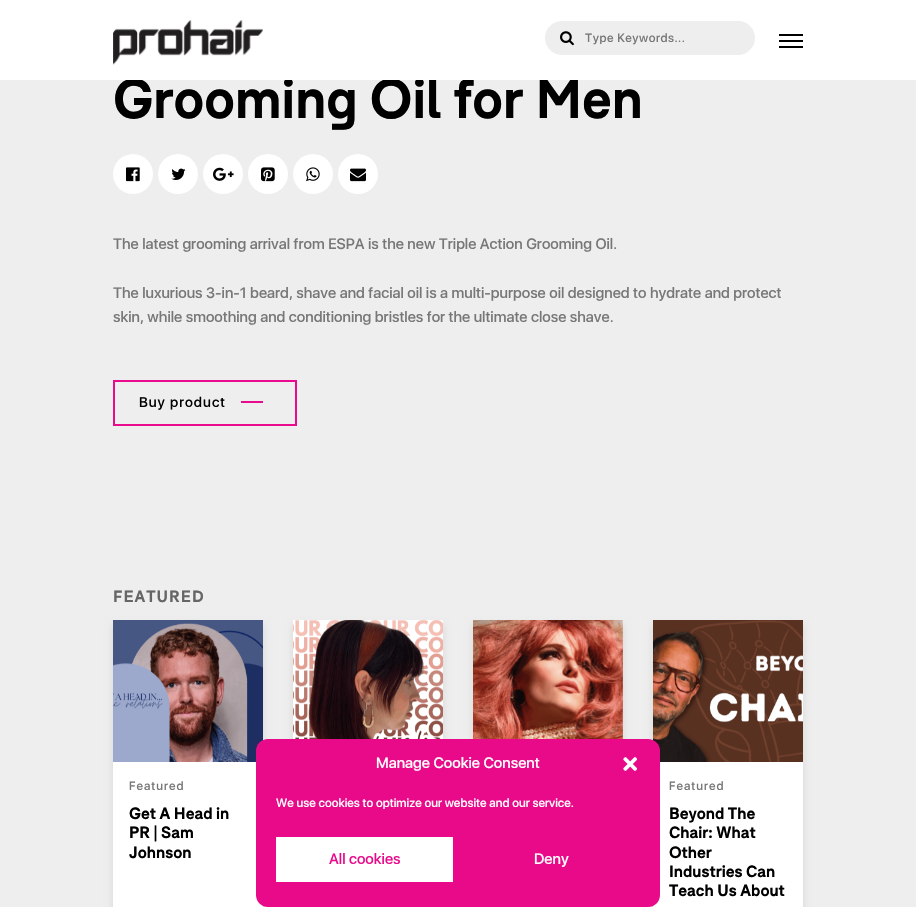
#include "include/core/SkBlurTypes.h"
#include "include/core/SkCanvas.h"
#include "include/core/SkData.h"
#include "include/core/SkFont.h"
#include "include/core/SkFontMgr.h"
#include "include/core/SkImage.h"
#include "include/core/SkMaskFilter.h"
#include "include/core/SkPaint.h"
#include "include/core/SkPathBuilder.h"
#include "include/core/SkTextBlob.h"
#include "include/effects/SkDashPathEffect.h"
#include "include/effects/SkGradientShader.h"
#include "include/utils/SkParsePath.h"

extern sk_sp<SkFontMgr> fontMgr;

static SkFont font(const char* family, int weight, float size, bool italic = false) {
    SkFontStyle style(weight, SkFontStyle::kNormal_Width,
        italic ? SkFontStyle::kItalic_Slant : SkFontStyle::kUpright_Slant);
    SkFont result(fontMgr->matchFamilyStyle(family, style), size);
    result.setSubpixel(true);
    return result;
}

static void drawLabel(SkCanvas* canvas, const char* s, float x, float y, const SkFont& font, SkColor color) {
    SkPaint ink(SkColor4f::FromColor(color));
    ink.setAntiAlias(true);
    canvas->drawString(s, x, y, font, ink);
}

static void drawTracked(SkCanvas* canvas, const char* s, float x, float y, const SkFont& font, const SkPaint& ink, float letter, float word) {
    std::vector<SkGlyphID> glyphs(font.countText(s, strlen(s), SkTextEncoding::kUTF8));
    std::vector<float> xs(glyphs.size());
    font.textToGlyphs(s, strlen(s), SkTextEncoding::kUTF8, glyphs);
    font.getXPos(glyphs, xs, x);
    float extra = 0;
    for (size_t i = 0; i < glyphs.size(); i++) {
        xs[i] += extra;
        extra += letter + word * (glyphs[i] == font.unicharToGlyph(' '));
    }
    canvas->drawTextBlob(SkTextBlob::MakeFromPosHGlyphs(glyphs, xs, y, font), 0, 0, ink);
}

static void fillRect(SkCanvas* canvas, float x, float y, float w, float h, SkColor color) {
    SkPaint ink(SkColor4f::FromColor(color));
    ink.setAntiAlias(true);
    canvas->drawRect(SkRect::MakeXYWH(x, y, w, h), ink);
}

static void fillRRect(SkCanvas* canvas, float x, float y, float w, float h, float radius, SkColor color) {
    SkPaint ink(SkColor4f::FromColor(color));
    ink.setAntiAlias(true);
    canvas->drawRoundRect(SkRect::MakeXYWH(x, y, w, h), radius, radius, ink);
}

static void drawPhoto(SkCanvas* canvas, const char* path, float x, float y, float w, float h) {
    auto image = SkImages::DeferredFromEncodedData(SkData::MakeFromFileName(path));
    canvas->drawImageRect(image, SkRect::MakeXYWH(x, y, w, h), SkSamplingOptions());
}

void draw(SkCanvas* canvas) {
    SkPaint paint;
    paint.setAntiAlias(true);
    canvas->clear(0xFFEEEEEE);
    SkFont font1 = font("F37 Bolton", 700, 54);
    drawLabel(canvas, "Grooming Oil for Men", 113, 118, font1, 0xFF000000);
    fillRect(canvas, 0, 0, 916, 80, 0xFFFFFFFF);
    drawPhoto(canvas, "assets/img1.png", 113, 20, 150, 45);
    fillRRect(canvas, 545, 21, 210, 34, 17, 0xFFEEEEEE);
    drawPhoto(canvas, "assets/img2.png", 560, 31, 14, 15);
    SkFont font2 = font("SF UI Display", 500, 12);
    paint.setColor(0xFF777777);
    drawTracked(canvas, "Type Keywords...", 585, 42, font2, paint, 0.5f, 0);
    fillRect(canvas, 779, 34, 24, 2, 0xFF000000);
    fillRect(canvas, 779, 40, 24, 2, 0xFF000000);
    fillRect(canvas, 779, 46, 24, 2, 0xFF000000);
    paint.setColor(0xFFFFFFFF);
    canvas->drawCircle(133, 174, 20, paint);
    drawPhoto(canvas, "assets/img3.png", 126, 167, 14, 15);
    canvas->drawCircle(178, 174, 20, paint);
    drawPhoto(canvas, "assets/img4.png", 171, 168, 15, 12);
    canvas->drawCircle(223, 174, 20, paint);
    drawPhoto(canvas, "assets/img5.png", 213, 167, 21, 14);
    canvas->drawCircle(268, 174, 20, paint);
    drawPhoto(canvas, "assets/img6.png", 261, 167, 14, 15);
    canvas->drawCircle(313, 174, 20, paint);
    drawPhoto(canvas, "assets/img7.png", 306, 167, 14, 15);
    canvas->drawCircle(358, 174, 20, paint);
    drawPhoto(canvas, "assets/img8.png", 350, 168, 16, 14);
    SkFont font3 = font("SF UI Display", 500, 15);
    drawLabel(canvas, "The latest grooming arrival from ESPA is the new Triple Action Grooming Oil.", 113, 249, font3, 0xFF777777);
    drawLabel(canvas, "The luxurious 3-in-1 beard, shave and facial oil is a multi-purpose oil designed to hydrate and protect", 113, 298, font3, 0xFF777777);
    drawLabel(canvas, "skin, while smoothing and conditioning bristles for the ultimate close shave.", 113, 322, font3, 0xFF777777);
    paint.setStroke(true);
    paint.setStrokeWidth(2);
    paint.setColor(0xFFEA0A8D);
    canvas->drawRect(SkRect::MakeXYWH(114, 381, 182, 44), paint);
    SkFont font4 = font("SF UI Display", 500, 14);
    paint.setStroke(false);
    paint.setColor(0xFF000000);
    drawTracked(canvas, "Buy product", 139, 407, font4, paint, 1, 0);
    fillRect(canvas, 241, 401, 22, 2, 0xFFEA0A8D);
    SkFont font5 = font("F37 Bolton", 700, 16);
    paint.setColor(0xFF666666);
    drawTracked(canvas, "FEATURED", 113, 602, font5, paint, 1, 0);
    paint.setColor(0x1A000000);
    paint.setMaskFilter(SkMaskFilter::MakeBlur(kNormal_SkBlurStyle, 3.5f));
    canvas->drawRect(SkRect::MakeXYWH(113, 625, 150, 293), paint);
    paint.setMaskFilter(nullptr);
    fillRect(canvas, 113, 762, 150, 145, 0xFFFFFFFF);
    drawPhoto(canvas, "assets/img9.png", 113, 620, 150, 142);
    paint.setColor(0xFF777777);
    drawTracked(canvas, "Featured", 129, 790, font2, paint, 1, 0);
    drawLabel(canvas, "Get A Head in", 129, 819, font5, 0xFF000000);
    drawLabel(canvas, "PR | Sam", 129, 838, font5, 0xFF000000);
    drawLabel(canvas, "Johnson", 129, 858, font5, 0xFF000000);
    paint.setColor(0x1A000000);
    paint.setMaskFilter(SkMaskFilter::MakeBlur(kNormal_SkBlurStyle, 3.5f));
    canvas->drawRect(SkRect::MakeXYWH(293, 625, 150, 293), paint);
    paint.setMaskFilter(nullptr);
    drawPhoto(canvas, "assets/img10.png", 293, 620, 150, 119);
    paint.setMaskFilter(SkMaskFilter::MakeBlur(kNormal_SkBlurStyle, 3.5f));
    canvas->drawRect(SkRect::MakeXYWH(473, 625, 150, 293), paint);
    paint.setMaskFilter(nullptr);
    drawPhoto(canvas, "assets/img11.png", 473, 620, 150, 119);
    paint.setMaskFilter(SkMaskFilter::MakeBlur(kNormal_SkBlurStyle, 3.5f));
    canvas->drawRect(SkRect::MakeXYWH(653, 625, 150, 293), paint);
    paint.setMaskFilter(nullptr);
    fillRect(canvas, 653, 762, 150, 145, 0xFFFFFFFF);
    drawPhoto(canvas, "assets/img12.png", 653, 620, 150, 142);
    paint.setColor(0xFF777777);
    drawTracked(canvas, "Featured", 669, 790, font2, paint, 1, 0);
    drawLabel(canvas, "Beyond The", 669, 819, font5, 0xFF000000);
    drawLabel(canvas, "Chair: What", 669, 838, font5, 0xFF000000);
    drawLabel(canvas, "Other", 669, 858, font5, 0xFF000000);
    drawLabel(canvas, "Industries Can", 669, 877, font5, 0xFF000000);
    drawLabel(canvas, "Teach Us About", 669, 896, font5, 0xFF000000);
    fillRRect(canvas, 256, 739, 404, 168, 12, 0xFFE90A8A);
    drawLabel(canvas, "Manage Cookie Consent", 376, 768, font3, 0xFFFFFFFF);
    drawPhoto(canvas, "assets/img13.png", 623, 757, 14, 14);
    drawLabel(canvas, "We use cookies to optimize our website and our service.", 276, 807, font2, 0xFFFFFFFF);
    fillRect(canvas, 276, 837, 177, 45, 0xFFFFFFFF);
    drawLabel(canvas, "All cookies", 329, 864, font3, 0xFFE90A8A);
    drawLabel(canvas, "Deny", 534, 864, font3, 0xFFFFFFFF);
}
